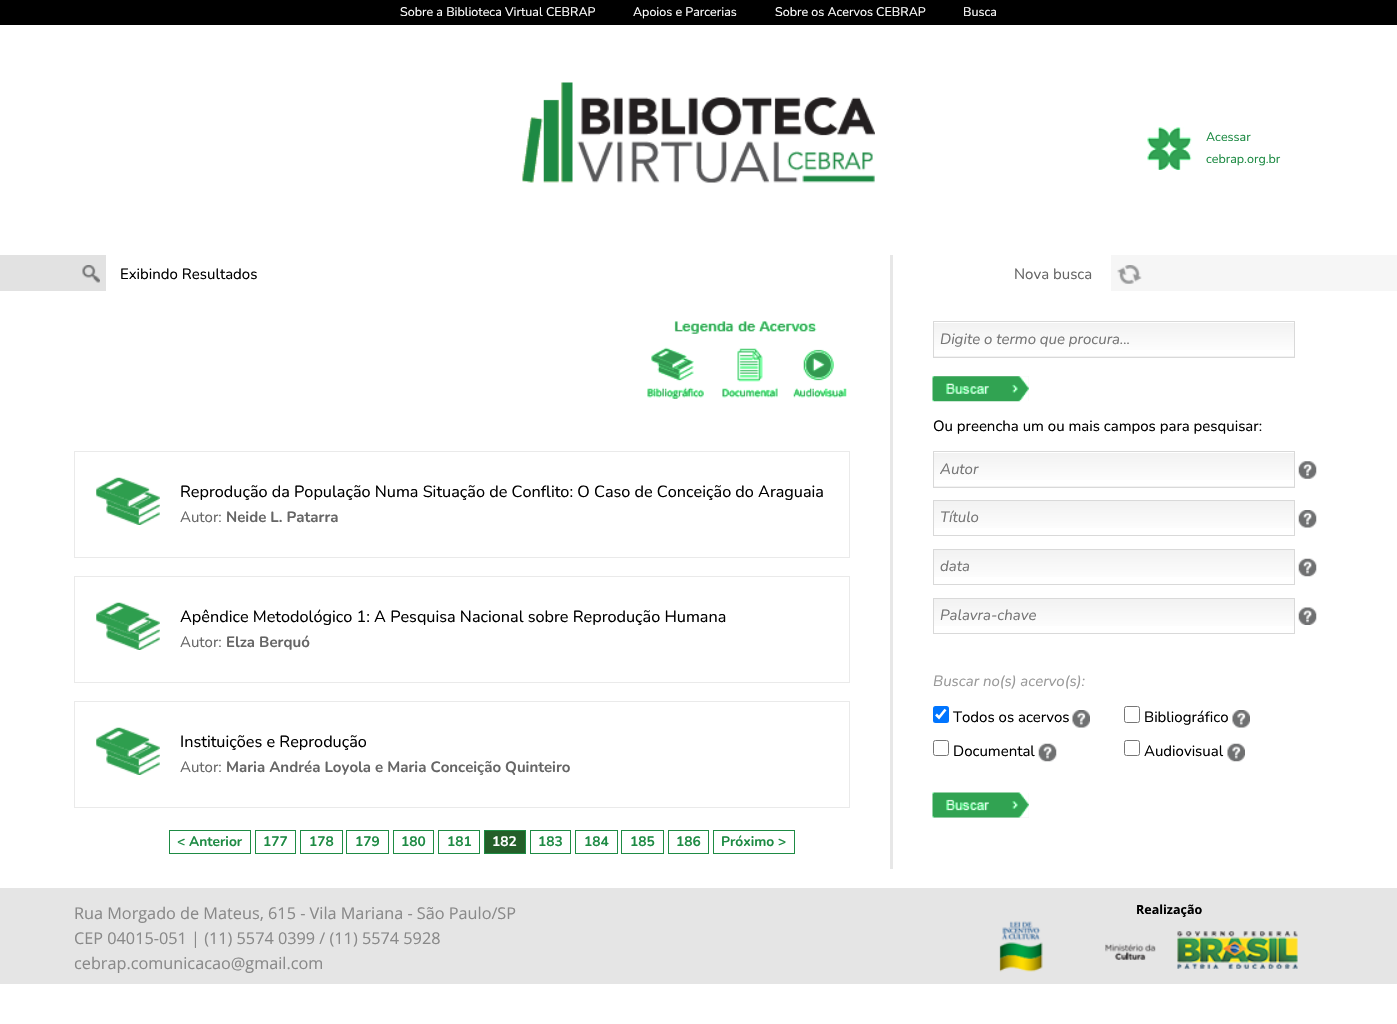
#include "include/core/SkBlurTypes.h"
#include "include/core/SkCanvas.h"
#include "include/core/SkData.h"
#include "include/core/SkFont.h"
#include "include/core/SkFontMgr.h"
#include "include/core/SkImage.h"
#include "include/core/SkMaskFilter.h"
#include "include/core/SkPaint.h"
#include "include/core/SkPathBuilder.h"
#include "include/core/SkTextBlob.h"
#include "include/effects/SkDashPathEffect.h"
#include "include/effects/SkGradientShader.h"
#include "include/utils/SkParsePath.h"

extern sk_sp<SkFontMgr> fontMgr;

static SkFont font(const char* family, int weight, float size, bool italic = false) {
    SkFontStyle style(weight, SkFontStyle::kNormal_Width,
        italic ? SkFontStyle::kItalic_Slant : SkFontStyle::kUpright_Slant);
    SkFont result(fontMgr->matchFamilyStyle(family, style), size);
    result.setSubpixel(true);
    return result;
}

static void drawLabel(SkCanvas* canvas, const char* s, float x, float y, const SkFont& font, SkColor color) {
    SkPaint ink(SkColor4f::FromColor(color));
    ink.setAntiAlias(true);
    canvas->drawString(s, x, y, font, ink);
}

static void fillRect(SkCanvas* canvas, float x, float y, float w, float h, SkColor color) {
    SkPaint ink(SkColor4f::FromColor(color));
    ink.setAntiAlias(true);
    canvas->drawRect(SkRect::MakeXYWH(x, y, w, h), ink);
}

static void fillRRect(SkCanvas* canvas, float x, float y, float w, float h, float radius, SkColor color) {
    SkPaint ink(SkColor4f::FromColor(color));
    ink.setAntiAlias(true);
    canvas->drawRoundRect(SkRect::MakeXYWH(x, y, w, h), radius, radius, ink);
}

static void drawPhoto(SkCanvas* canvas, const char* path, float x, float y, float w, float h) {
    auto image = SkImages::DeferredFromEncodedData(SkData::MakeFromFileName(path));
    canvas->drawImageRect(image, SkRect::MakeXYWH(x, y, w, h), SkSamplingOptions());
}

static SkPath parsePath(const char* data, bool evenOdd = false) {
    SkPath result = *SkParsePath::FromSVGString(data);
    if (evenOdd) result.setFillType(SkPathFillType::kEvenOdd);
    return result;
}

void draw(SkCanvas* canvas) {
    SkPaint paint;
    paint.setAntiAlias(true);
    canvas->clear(0xFFFFFFFF);
    fillRect(canvas, 0, 0, 1397, 25, 0xFF000000);
    SkFont font1 = font("Nunito", 400, 12.5f);
    drawLabel(canvas, "Sobre a Biblioteca Virtual CEBRAP", 400, 16, font1, 0xFFFFFFFF);
    drawLabel(canvas, "Apoios e Parcerias", 633, 16, font1, 0xFFFFFFFF);
    drawLabel(canvas, "Sobre os Acervos CEBRAP", 775, 16, font1, 0xFFFFFFFF);
    drawLabel(canvas, "Busca", 963, 16, font1, 0xFFFFFFFF);
    drawPhoto(canvas, "assets/img1.png", 522, 82, 353, 101);
    drawPhoto(canvas, "assets/img2.png", 1147, 127, 45, 43);
    drawLabel(canvas, "Acessar", 1206, 141, font1, 0xFF1E8B44);
    drawLabel(canvas, "cebrap.org.br", 1206, 163, font1, 0xFF1E8B44);
    fillRect(canvas, 0, 255, 106, 36, 0xFFE2E2E2);
    drawPhoto(canvas, "assets/img3.png", 82, 265, 18, 18);
    fillRect(canvas, 1111, 255, 286, 36, 0xFFF6F6F6);
    drawPhoto(canvas, "assets/img4.png", 1117, 265, 25, 19);
    fillRect(canvas, 890, 255, 3, 614, 0xFFE7E7E7);
    SkFont font2 = font("Nunito", 400, 15);
    drawLabel(canvas, "Exibindo Resultados", 120, 279, font2, 0xFF000000);
    drawPhoto(canvas, "assets/img5.png", 647, 321, 200, 78);
    paint.setStroke(true);
    paint.setStrokeWidth(1);
    paint.setColor(0xFFEAEAEA);
    canvas->drawRect(SkRect::MakeXYWH(74.5f, 451.5f, 775, 106), paint);
    drawPhoto(canvas, "assets/img6.png", 96, 477, 64, 48);
    SkFont font3 = font("Nunito", 400, 16.25f);
    drawLabel(canvas, "Reprodução da População Numa Situação de Conflito: O Caso de Conceição do Araguaia", 180, 497, font3, 0xFF000000);
    drawLabel(canvas, "Autor:", 180, 522, font2, 0xFF666666);
    SkFont font4 = font("Nunito", 700, 15);
    drawLabel(canvas, "Neide L. Patarra", 226, 522, font4, 0xFF666666);
    canvas->drawRect(SkRect::MakeXYWH(74.5f, 576.5f, 775, 106), paint);
    drawPhoto(canvas, "assets/img6.png", 96, 602, 64, 48);
    drawLabel(canvas, "Apêndice Metodológico 1: A Pesquisa Nacional sobre Reprodução Humana", 180, 622, font3, 0xFF000000);
    drawLabel(canvas, "Autor:", 180, 647, font2, 0xFF666666);
    drawLabel(canvas, "Elza Berquó", 226, 647, font4, 0xFF666666);
    canvas->drawRect(SkRect::MakeXYWH(74.5f, 701.5f, 775, 106), paint);
    drawPhoto(canvas, "assets/img6.png", 96, 727, 64, 48);
    drawLabel(canvas, "Instituições e Reprodução", 180, 747, font3, 0xFF000000);
    drawLabel(canvas, "Autor:", 180, 772, font2, 0xFF666666);
    drawLabel(canvas, "Maria Andréa Loyola e Maria Conceição Quinteiro", 226, 772, font4, 0xFF666666);
    paint.setColor(0xFF1E8B44);
    canvas->drawRect(SkRect::MakeXYWH(169.5f, 830.5f, 81, 23), paint);
    SkFont font5 = font("Nunito", 700, 13.75f);
    drawLabel(canvas, "< Anterior", 177, 846, font5, 0xFF1E8B44);
    canvas->drawRect(SkRect::MakeXYWH(255.5f, 830.5f, 40, 23), paint);
    drawLabel(canvas, "177", 263, 846, font5, 0xFF1E8B44);
    canvas->drawRect(SkRect::MakeXYWH(300.5f, 830.5f, 42, 23), paint);
    drawLabel(canvas, "178", 309, 846, font5, 0xFF1E8B44);
    canvas->drawRect(SkRect::MakeXYWH(346.5f, 830.5f, 42, 23), paint);
    drawLabel(canvas, "179", 355, 846, font5, 0xFF1E8B44);
    canvas->drawRect(SkRect::MakeXYWH(393.5f, 830.5f, 40, 23), paint);
    drawLabel(canvas, "180", 401, 846, font5, 0xFF1E8B44);
    canvas->drawRect(SkRect::MakeXYWH(438.5f, 830.5f, 41, 23), paint);
    drawLabel(canvas, "181", 447, 846, font5, 0xFF1E8B44);
    paint.setStroke(false);
    paint.setColor(0xFF245F29);
    canvas->drawRect(SkRect::MakeXYWH(484.5f, 830.5f, 41, 23), paint);
    paint.setStroke(true);
    paint.setColor(0xFF1E8B44);
    canvas->drawRect(SkRect::MakeXYWH(484.5f, 830.5f, 41, 23), paint);
    drawLabel(canvas, "182", 492, 846, font5, 0xFFFFFFFF);
    canvas->drawRect(SkRect::MakeXYWH(530.5f, 830.5f, 40, 23), paint);
    drawLabel(canvas, "183", 538, 846, font5, 0xFF1E8B44);
    canvas->drawRect(SkRect::MakeXYWH(575.5f, 830.5f, 42, 23), paint);
    drawLabel(canvas, "184", 584, 846, font5, 0xFF1E8B44);
    canvas->drawRect(SkRect::MakeXYWH(621.5f, 830.5f, 42, 23), paint);
    drawLabel(canvas, "185", 630, 846, font5, 0xFF1E8B44);
    canvas->drawRect(SkRect::MakeXYWH(668.5f, 830.5f, 40, 23), paint);
    drawLabel(canvas, "186", 676, 846, font5, 0xFF1E8B44);
    canvas->drawRect(SkRect::MakeXYWH(713.5f, 830.5f, 81, 23), paint);
    drawLabel(canvas, "Próximo >", 721, 846, font5, 0xFF1E8B44);
    drawLabel(canvas, "Nova busca", 1014, 279, font2, 0xFF666666);
    fillRect(canvas, 934, 356, 360, 1, 0xFFF2F2F2);
    paint.setStroke(false);
    {
        const SkColor colors[] = {0xFFF2F2F2, 0xFFFFFFFF};
        const float stops[] = {0, 1};
        const SkPoint ends[] = {{1114, 323}, {1114, 356}};
        paint.setShader(SkGradientShader::MakeLinear(ends, colors, stops, 2, SkTileMode::kClamp));
        paint.setAlpha(255);
    }
    canvas->drawRect(SkRect::MakeXYWH(934, 323, 360, 27), paint);
    paint.setStroke(true);
    paint.setShader(nullptr);
    paint.setColor(0xFFD9D9D9);
    canvas->drawRect(SkRect::MakeXYWH(933.5f, 321.5f, 361, 36), paint);
    SkFont font6 = font("Nunito", 400, 15, true);
    drawLabel(canvas, "Digite o termo que procura...", 940, 344, font6, 0xFF757575);
    fillRect(canvas, 933, 376, 96, 25, 0xFFEFEFEF);
    drawPhoto(canvas, "assets/img7.png", 932, 376, 97, 26);
    drawLabel(canvas, "Ou preencha um ou mais campos para pesquisar:", 933, 431, font2, 0xFF000000);
    fillRect(canvas, 934, 486, 360, 1, 0xFFF2F2F2);
    paint.setStroke(false);
    {
        const SkColor colors[] = {0xFFF2F2F2, 0xFFFFFFFF};
        const float stops[] = {0, 1};
        const SkPoint ends[] = {{1114, 453}, {1114, 486}};
        paint.setShader(SkGradientShader::MakeLinear(ends, colors, stops, 2, SkTileMode::kClamp));
        paint.setAlpha(255);
    }
    canvas->drawRect(SkRect::MakeXYWH(934, 453, 360, 27), paint);
    paint.setStroke(true);
    paint.setShader(nullptr);
    paint.setColor(0xFFD9D9D9);
    canvas->drawRect(SkRect::MakeXYWH(933.5f, 451.5f, 361, 36), paint);
    drawLabel(canvas, "Autor", 940, 474, font6, 0xFF757575);
    drawPhoto(canvas, "assets/img8.png", 1298, 461, 19, 18);
    paint.setStroke(false);
    {
        const SkColor colors[] = {0xFFF2F2F2, 0xFFFFFFFF};
        const float stops[] = {0, 1};
        const SkPoint ends[] = {{1114, 501}, {1114, 535}};
        paint.setShader(SkGradientShader::MakeLinear(ends, colors, stops, 2, SkTileMode::kClamp));
        paint.setAlpha(255);
    }
    canvas->drawRect(SkRect::MakeXYWH(934, 501, 360, 27), paint);
    paint.setStroke(true);
    paint.setShader(nullptr);
    paint.setColor(0xFFD9D9D9);
    canvas->drawRect(SkRect::MakeXYWH(933.5f, 500.5f, 361, 35), paint);
    drawLabel(canvas, "Título", 940, 522, font6, 0xFF757575);
    drawPhoto(canvas, "assets/img9.png", 1298, 510, 19, 18);
    paint.setStroke(false);
    {
        const SkColor colors[] = {0xFFF2F2F2, 0xFFFFFFFF};
        const float stops[] = {0, 1};
        const SkPoint ends[] = {{1114, 550}, {1114, 584}};
        paint.setShader(SkGradientShader::MakeLinear(ends, colors, stops, 2, SkTileMode::kClamp));
        paint.setAlpha(255);
    }
    canvas->drawRect(SkRect::MakeXYWH(934, 550, 360, 27), paint);
    paint.setStroke(true);
    paint.setShader(nullptr);
    paint.setColor(0xFFD9D9D9);
    canvas->drawRect(SkRect::MakeXYWH(933.5f, 549.5f, 361, 35), paint);
    drawLabel(canvas, "data", 940, 571, font6, 0xFF757575);
    drawPhoto(canvas, "assets/img10.png", 1298, 558, 19, 19);
    paint.setStroke(false);
    {
        const SkColor colors[] = {0xFFF2F2F2, 0xFFFFFFFF};
        const float stops[] = {0, 1};
        const SkPoint ends[] = {{1114, 599}, {1114, 633}};
        paint.setShader(SkGradientShader::MakeLinear(ends, colors, stops, 2, SkTileMode::kClamp));
        paint.setAlpha(255);
    }
    canvas->drawRect(SkRect::MakeXYWH(934, 599, 360, 27), paint);
    paint.setStroke(true);
    paint.setShader(nullptr);
    paint.setColor(0xFFD9D9D9);
    canvas->drawRect(SkRect::MakeXYWH(933.5f, 598.5f, 361, 35), paint);
    drawLabel(canvas, "Palavra-chave", 940, 620, font6, 0xFF757575);
    drawPhoto(canvas, "assets/img11.png", 1298, 607, 19, 18);
    drawLabel(canvas, "Buscar no(s) acervo(s):", 933, 686, font6, 0xFF999999);
    fillRRect(canvas, 933, 706, 16, 17, 2.5f, 0xFF0075FF);
    paint.setStrokeWidth(2.6f);
    paint.setColor(0xFFFFFFFF);
    canvas->drawPath(parsePath("M936 714.5L939 717.5L945.5 709.5"), paint);
    drawLabel(canvas, "Todos os acervos", 953, 722, font2, 0xFF000000);
    drawPhoto(canvas, "assets/img12.png", 1072, 710, 18, 18);
    paint.setStrokeWidth(1);
    paint.setColor(0xFF767676);
    canvas->drawRoundRect(SkRect::MakeXYWH(1124.5f, 706.5f, 15, 16), 2, 2, paint);
    drawLabel(canvas, "Bibliográfico", 1144, 722, font2, 0xFF000000);
    drawPhoto(canvas, "assets/img13.png", 1232, 710, 18, 18);
    canvas->drawRoundRect(SkRect::MakeXYWH(933.5f, 740.5f, 15, 15), 2, 2, paint);
    drawLabel(canvas, "Documental", 953, 756, font2, 0xFF000000);
    drawPhoto(canvas, "assets/img10.png", 1038, 743, 19, 19);
    canvas->drawRoundRect(SkRect::MakeXYWH(1124.5f, 740.5f, 15, 15), 2, 2, paint);
    drawLabel(canvas, "Audiovisual", 1144, 756, font2, 0xFF000000);
    drawPhoto(canvas, "assets/img14.png", 1227, 743, 18, 19);
    fillRect(canvas, 933, 793, 96, 25, 0xFFEFEFEF);
    drawPhoto(canvas, "assets/img15.png", 932, 792, 97, 26);
    fillRect(canvas, 0, 888, 1397, 96, 0xFFE5E5E5);
    SkFont font7 = font("Open Sans", 400, 16.25f);
    drawLabel(canvas, "Rua Morgado de Mateus, 615 - Vila Mariana - São Paulo/SP", 74, 919, font7, 0xFF898989);
    drawLabel(canvas, "CEP 04015-051 | (11) 5574 0399 / (11) 5574 5928", 74, 944, font7, 0xFF898989);
    drawLabel(canvas, "cebrap.comunicacao@gmail.com", 74, 969, font7, 0xFF898989);
    SkFont font8 = font("Open Sans", 700, 12.5f);
    drawLabel(canvas, "Realização", 1136, 914, font8, 0xFF000000);
    drawPhoto(canvas, "assets/img16.png", 999, 921, 44, 51);
    drawPhoto(canvas, "assets/img17.png", 1105, 943, 51, 17);
    drawPhoto(canvas, "assets/img18.png", 1177, 931, 121, 38);
}
